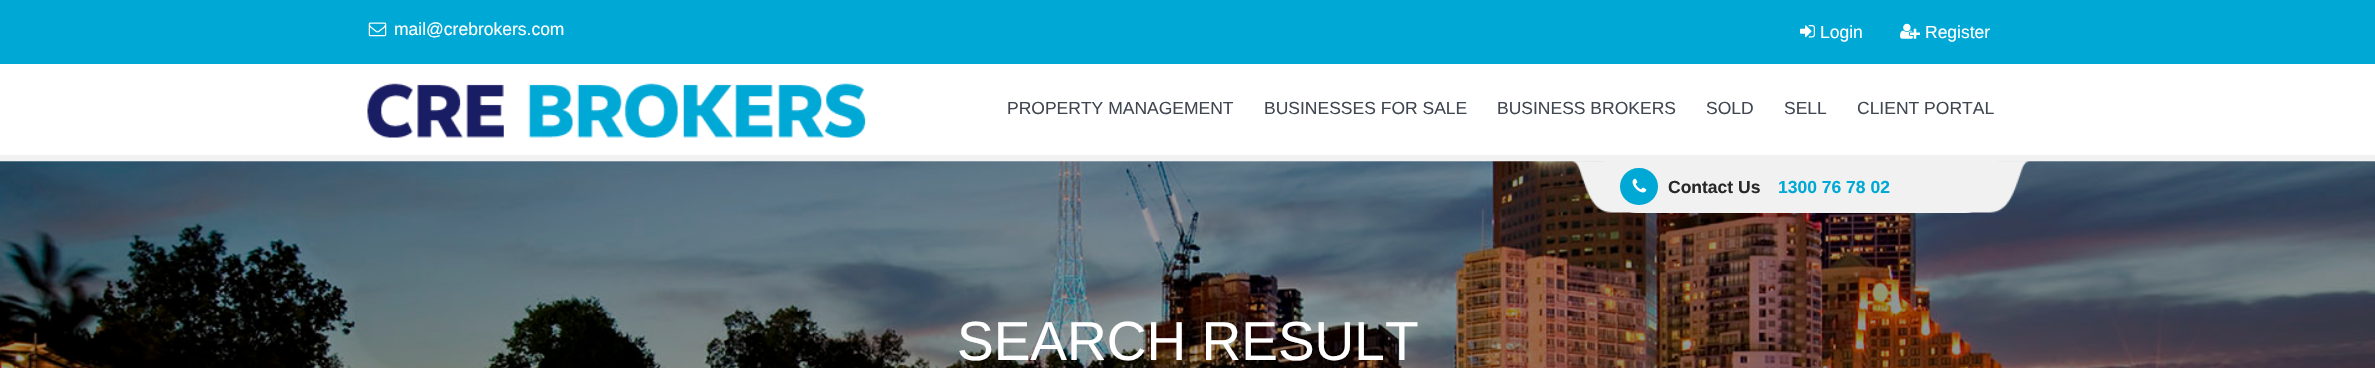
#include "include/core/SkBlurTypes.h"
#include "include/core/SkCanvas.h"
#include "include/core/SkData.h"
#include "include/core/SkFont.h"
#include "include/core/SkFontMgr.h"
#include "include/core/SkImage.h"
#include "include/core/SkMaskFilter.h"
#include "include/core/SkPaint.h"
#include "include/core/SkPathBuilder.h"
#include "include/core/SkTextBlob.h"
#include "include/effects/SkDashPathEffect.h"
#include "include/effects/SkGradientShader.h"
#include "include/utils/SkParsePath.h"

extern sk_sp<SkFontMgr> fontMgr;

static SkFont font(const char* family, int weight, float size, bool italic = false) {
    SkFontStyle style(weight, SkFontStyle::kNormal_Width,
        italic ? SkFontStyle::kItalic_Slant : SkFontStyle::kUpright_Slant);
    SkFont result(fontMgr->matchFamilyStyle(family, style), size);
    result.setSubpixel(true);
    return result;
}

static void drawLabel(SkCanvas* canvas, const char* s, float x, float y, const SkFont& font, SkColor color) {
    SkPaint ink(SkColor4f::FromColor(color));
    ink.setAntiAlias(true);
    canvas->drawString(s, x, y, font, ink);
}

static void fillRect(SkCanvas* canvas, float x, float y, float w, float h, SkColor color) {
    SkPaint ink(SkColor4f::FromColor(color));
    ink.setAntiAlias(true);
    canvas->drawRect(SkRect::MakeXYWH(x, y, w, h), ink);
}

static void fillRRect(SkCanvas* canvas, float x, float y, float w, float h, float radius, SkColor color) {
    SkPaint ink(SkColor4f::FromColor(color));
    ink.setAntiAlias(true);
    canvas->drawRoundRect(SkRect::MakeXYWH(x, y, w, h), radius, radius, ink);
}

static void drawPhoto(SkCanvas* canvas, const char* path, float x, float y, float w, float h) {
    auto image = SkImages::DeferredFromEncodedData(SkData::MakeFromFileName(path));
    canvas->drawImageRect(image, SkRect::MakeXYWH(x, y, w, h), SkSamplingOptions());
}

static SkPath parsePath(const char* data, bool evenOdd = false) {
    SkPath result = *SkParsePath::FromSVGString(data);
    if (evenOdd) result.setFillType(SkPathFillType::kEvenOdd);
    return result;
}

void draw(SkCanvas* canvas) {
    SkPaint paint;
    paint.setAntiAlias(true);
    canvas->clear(0xFFFFFFFF);
    fillRect(canvas, 0, 0, 2375, 64, 0xFF00A8D5);
    drawPhoto(canvas, "assets/img1.png", 368, 22, 19, 15);
    SkFont font1 = font("Liberation Sans", 400, 17.5f);
    drawLabel(canvas, "mail@crebrokers.com", 394, 35, font1, 0xFFFFFFFF);
    drawPhoto(canvas, "assets/img2.png", 1800, 25, 15, 13);
    drawLabel(canvas, "Login", 1820, 38, font1, 0xFFFFFFFF);
    drawPhoto(canvas, "assets/img3.png", 1900, 23, 20, 16);
    drawLabel(canvas, "Register", 1925, 38, font1, 0xFFFFFFFF);
    fillRect(canvas, 0, 155, 2375, 6, 0xFFF1F1F1);
    drawPhoto(canvas, "assets/img4.png", 367, 83, 499, 55);
    drawLabel(canvas, "PROPERTY MANAGEMENT", 1007, 114, font1, 0xFF414751);
    drawLabel(canvas, "BUSINESSES FOR SALE", 1264, 114, font1, 0xFF414751);
    drawLabel(canvas, "BUSINESS BROKERS", 1497, 114, font1, 0xFF414751);
    drawLabel(canvas, "SOLD", 1706, 114, font1, 0xFF414751);
    drawLabel(canvas, "SELL", 1784, 114, font1, 0xFF414751);
    drawLabel(canvas, "CLIENT PORTAL", 1857, 114, font1, 0xFF414751);
    drawPhoto(canvas, "assets/img8.png", 0, 161, 2375, 207);
    paint.setColor(0xFFF1F1F1);
    canvas->drawPath(parsePath("M1604 161H1998V180C1998 198 1983 213 1965 213H1637C1619 213 1604 198 1604 180Z"), paint);
    drawPhoto(canvas, "assets/img5.png", 1567, 161, 69, 52);
    fillRRect(canvas, 1620, 168, 38, 37, 18.5f, 0xFF00A8D5);
    drawPhoto(canvas, "assets/img6.png", 1632, 178, 15, 15);
    SkFont font2 = font("Liberation Sans", 700, 17.5f);
    drawLabel(canvas, "Contact Us", 1668, 193, font2, 0xFF282828);
    drawLabel(canvas, "1300 76 78 02", 1778, 193, font2, 0xFF00A8D5);
    drawPhoto(canvas, "assets/img7.png", 1966, 161, 69, 52);
    SkFont font3 = font("Liberation Sans", 400, 55);
    drawLabel(canvas, "SEARCH RESULT", 957, 360, font3, 0xFFFFFFFF);
}
